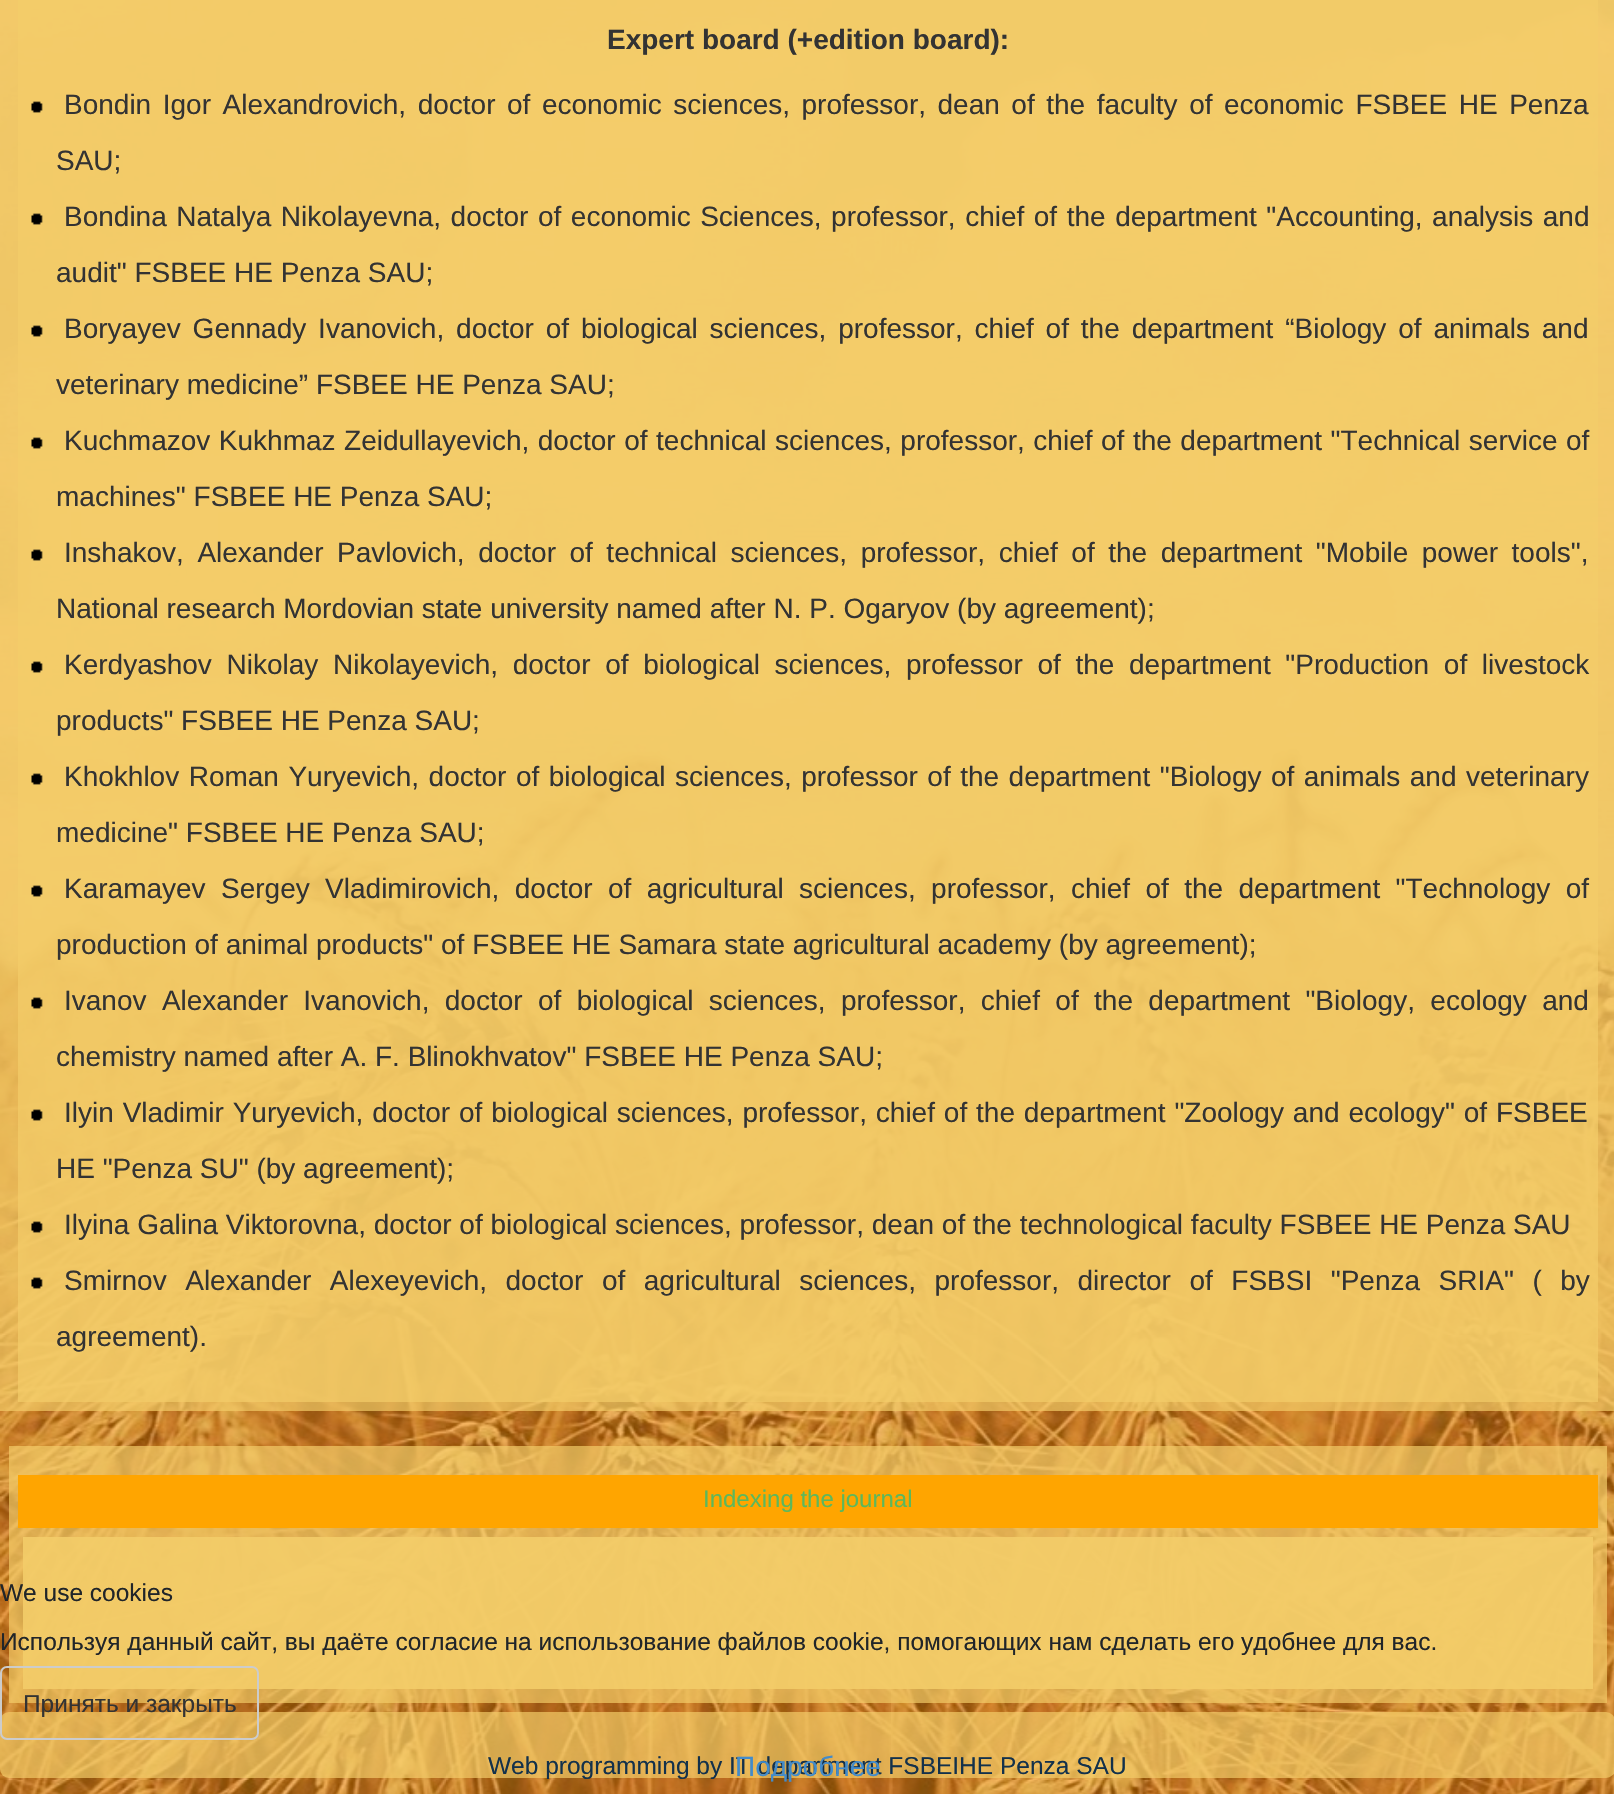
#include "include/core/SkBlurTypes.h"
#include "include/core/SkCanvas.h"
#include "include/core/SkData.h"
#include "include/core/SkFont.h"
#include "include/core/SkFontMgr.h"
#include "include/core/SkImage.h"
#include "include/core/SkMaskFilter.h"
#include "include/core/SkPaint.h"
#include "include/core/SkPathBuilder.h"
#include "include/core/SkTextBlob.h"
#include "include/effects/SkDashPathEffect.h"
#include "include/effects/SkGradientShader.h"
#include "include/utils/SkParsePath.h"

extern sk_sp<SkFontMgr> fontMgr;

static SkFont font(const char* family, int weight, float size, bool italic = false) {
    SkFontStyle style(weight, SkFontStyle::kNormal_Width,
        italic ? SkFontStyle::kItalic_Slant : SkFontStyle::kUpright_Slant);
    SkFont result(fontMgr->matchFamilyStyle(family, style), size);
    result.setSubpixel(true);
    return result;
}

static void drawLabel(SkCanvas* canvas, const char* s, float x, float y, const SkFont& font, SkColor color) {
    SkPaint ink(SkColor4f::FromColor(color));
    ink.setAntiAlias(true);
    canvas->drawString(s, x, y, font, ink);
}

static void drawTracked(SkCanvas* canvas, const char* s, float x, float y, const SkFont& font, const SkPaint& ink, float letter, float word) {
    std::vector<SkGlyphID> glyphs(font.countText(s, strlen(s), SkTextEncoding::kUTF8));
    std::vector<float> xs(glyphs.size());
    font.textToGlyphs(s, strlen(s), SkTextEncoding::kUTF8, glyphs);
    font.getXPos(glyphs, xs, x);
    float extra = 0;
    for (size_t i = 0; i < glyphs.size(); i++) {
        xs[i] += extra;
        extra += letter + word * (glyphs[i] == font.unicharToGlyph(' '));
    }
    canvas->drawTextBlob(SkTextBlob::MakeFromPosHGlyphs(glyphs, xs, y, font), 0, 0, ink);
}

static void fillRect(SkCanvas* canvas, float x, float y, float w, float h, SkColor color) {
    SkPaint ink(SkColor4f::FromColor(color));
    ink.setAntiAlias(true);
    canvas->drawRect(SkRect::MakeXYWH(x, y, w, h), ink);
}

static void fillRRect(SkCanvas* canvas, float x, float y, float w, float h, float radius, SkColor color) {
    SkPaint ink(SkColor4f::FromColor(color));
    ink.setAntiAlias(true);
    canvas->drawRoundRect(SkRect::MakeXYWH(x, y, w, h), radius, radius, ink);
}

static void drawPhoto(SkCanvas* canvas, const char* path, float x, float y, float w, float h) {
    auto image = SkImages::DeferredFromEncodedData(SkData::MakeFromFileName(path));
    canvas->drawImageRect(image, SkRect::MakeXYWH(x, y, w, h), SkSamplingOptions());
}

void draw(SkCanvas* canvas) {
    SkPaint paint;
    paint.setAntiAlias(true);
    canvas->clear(0xFFFFFFFF);
    drawPhoto(canvas, "assets/img1.png", 0, 0, 1614, 1794);
    fillRect(canvas, 0, 0, 1614, 1411, 0xB0F3CC68);
    fillRect(canvas, 18, 0, 1580, 1402, 0xB0F3CC68);
    SkFont font1 = font("Liberation Sans", 700, 28);
    drawLabel(canvas, "Expert board (+edition board):", 607, 49, font1, 0xFF333333);
    drawPhoto(canvas, "assets/img2.png", 31, 101, 12, 12);
    SkFont font2 = font("Liberation Sans", 400, 28);
    paint.setColor(0xFF333333);
    drawTracked(canvas, "Bondin Igor Alexandrovich, doctor of economic sciences, professor, dean of the faculty of economic FSBEE HE Penza", 64, 114, font2, paint, 0, 3.75f);
    drawLabel(canvas, "SAU;", 56, 170, font2, 0xFF333333);
    drawPhoto(canvas, "assets/img3.png", 31, 213, 12, 12);
    drawTracked(canvas, "Bondina Natalya Nikolayevna, doctor of economic Sciences, professor, chief of the department \"Accounting, analysis and", 64, 226, font2, paint, 0, 1.75f);
    drawLabel(canvas, "audit\" FSBEE HE Penza SAU;", 56, 282, font2, 0xFF333333);
    drawPhoto(canvas, "assets/img4.png", 31, 325, 12, 12);
    drawTracked(canvas, "Boryayev Gennady Ivanovich, doctor of biological sciences, professor, chief of the department “Biology of animals and", 64, 338, font2, paint, 0, 4.1f);
    drawLabel(canvas, "veterinary medicine” FSBEE HE Penza SAU;", 56, 394, font2, 0xFF333333);
    drawPhoto(canvas, "assets/img5.png", 31, 437, 12, 12);
    drawTracked(canvas, "Kuchmazov Kukhmaz Zeidullayevich, doctor of technical sciences, professor, chief of the department \"Technical service of", 64, 450, font2, paint, 0, 0.75f);
    drawLabel(canvas, "machines\" FSBEE HE Penza SAU;", 56, 506, font2, 0xFF333333);
    drawPhoto(canvas, "assets/img6.png", 31, 549, 12, 12);
    drawTracked(canvas, "Inshakov, Alexander Pavlovich, doctor of technical sciences, professor, chief of the department \"Mobile power tools\",", 64, 562, font2, paint, 0, 5.75f);
    drawLabel(canvas, "National research Mordovian state university named after N. P. Ogaryov (by agreement);", 56, 618, font2, 0xFF333333);
    drawPhoto(canvas, "assets/img7.png", 31, 661, 12, 12);
    drawTracked(canvas, "Kerdyashov Nikolay Nikolayevich, doctor of biological sciences, professor of the department \"Production of livestock", 64, 674, font2, paint, 0, 6.9f);
    drawLabel(canvas, "products\" FSBEE HE Penza SAU;", 56, 730, font2, 0xFF333333);
    drawPhoto(canvas, "assets/img8.png", 31, 773, 12, 12);
    drawTracked(canvas, "Khokhlov Roman Yuryevich, doctor of biological sciences, professor of the department \"Biology of animals and veterinary", 64, 786, font2, paint, 0, 1.7f);
    drawLabel(canvas, "medicine\" FSBEE HE Penza SAU;", 56, 842, font2, 0xFF333333);
    drawPhoto(canvas, "assets/img9.png", 31, 885, 12, 12);
    drawTracked(canvas, "Karamayev Sergey Vladimirovich, doctor of agricultural sciences, professor, chief of the department \"Technology of", 64, 898, font2, paint, 0, 7.6f);
    drawLabel(canvas, "production of animal products\" of FSBEE HE Samara state agricultural academy (by agreement);", 56, 954, font2, 0xFF333333);
    drawPhoto(canvas, "assets/img10.png", 31, 997, 12, 12);
    drawTracked(canvas, "Ivanov Alexander Ivanovich, doctor of biological sciences, professor, chief of the department \"Biology, ecology and", 64, 1010, font2, paint, 0, 7.6f);
    drawLabel(canvas, "chemistry named after A. F. Blinokhvatov\" FSBEE HE Penza SAU;", 56, 1066, font2, 0xFF333333);
    drawPhoto(canvas, "assets/img11.png", 31, 1109, 12, 12);
    drawTracked(canvas, "Ilyin Vladimir Yuryevich, doctor of biological sciences, professor, chief of the department \"Zoology and ecology\" of FSBEE", 64, 1122, font2, paint, 0, 1.1f);
    drawLabel(canvas, "HE \"Penza SU\" (by agreement);", 56, 1178, font2, 0xFF333333);
    drawPhoto(canvas, "assets/img12.png", 31, 1221, 12, 12);
    drawLabel(canvas, "Ilyina Galina Viktorovna, doctor of biological sciences, professor, dean of the technological faculty FSBEE HE Penza SAU", 64, 1234, font2, 0xFF333333);
    drawPhoto(canvas, "assets/img13.png", 31, 1277, 12, 12);
    drawTracked(canvas, "Smirnov Alexander Alexeyevich, doctor of agricultural sciences, professor, director of FSBSI \"Penza SRIA\" ( by", 64, 1290, font2, paint, 0, 10.75f);
    drawLabel(canvas, "agreement).", 56, 1346, font2, 0xFF333333);
    fillRect(canvas, 9, 1446, 1598, 257, 0xB0F3CC68);
    fillRect(canvas, 18, 1475, 1580, 53, 0xFFFFA500);
    SkFont font3 = font("Liberation Sans", 400, 24);
    drawLabel(canvas, "Indexing the journal", 703, 1507, font3, 0xFF5CB85C);
    fillRect(canvas, 23, 1537, 1570, 152, 0xE6F3CC68);
    fillRRect(canvas, 0, 1712, 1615, 66, 9, 0xB0F3CC68);
    SkFont font4 = font("Liberation Sans", 400, 24.5f);
    drawLabel(canvas, "Web programming by IT department FSBEIHE Penza SAU", 488, 1774, font4, 0xFF13314B);
    drawLabel(canvas, "We use cookies", 0, 1601, font4, 0xFF212529);
    drawLabel(canvas, "Используя данный сайт, вы даёте согласие на использование файлов cookie, помогающих нам сделать его удобнее для вас.", 0, 1650, font4, 0xFF212529);
    paint.setStroke(true);
    paint.setStrokeWidth(2);
    paint.setColor(0xFFCCCCCC);
    canvas->drawRoundRect(SkRect::MakeXYWH(1, 1667, 257, 72), 6, 6, paint);
    drawLabel(canvas, "Принять и закрыть", 23, 1712, font4, 0xFF333333);
    drawLabel(canvas, "Подробнее", 735, 1776, font2, 0xFF428BCA);
}
